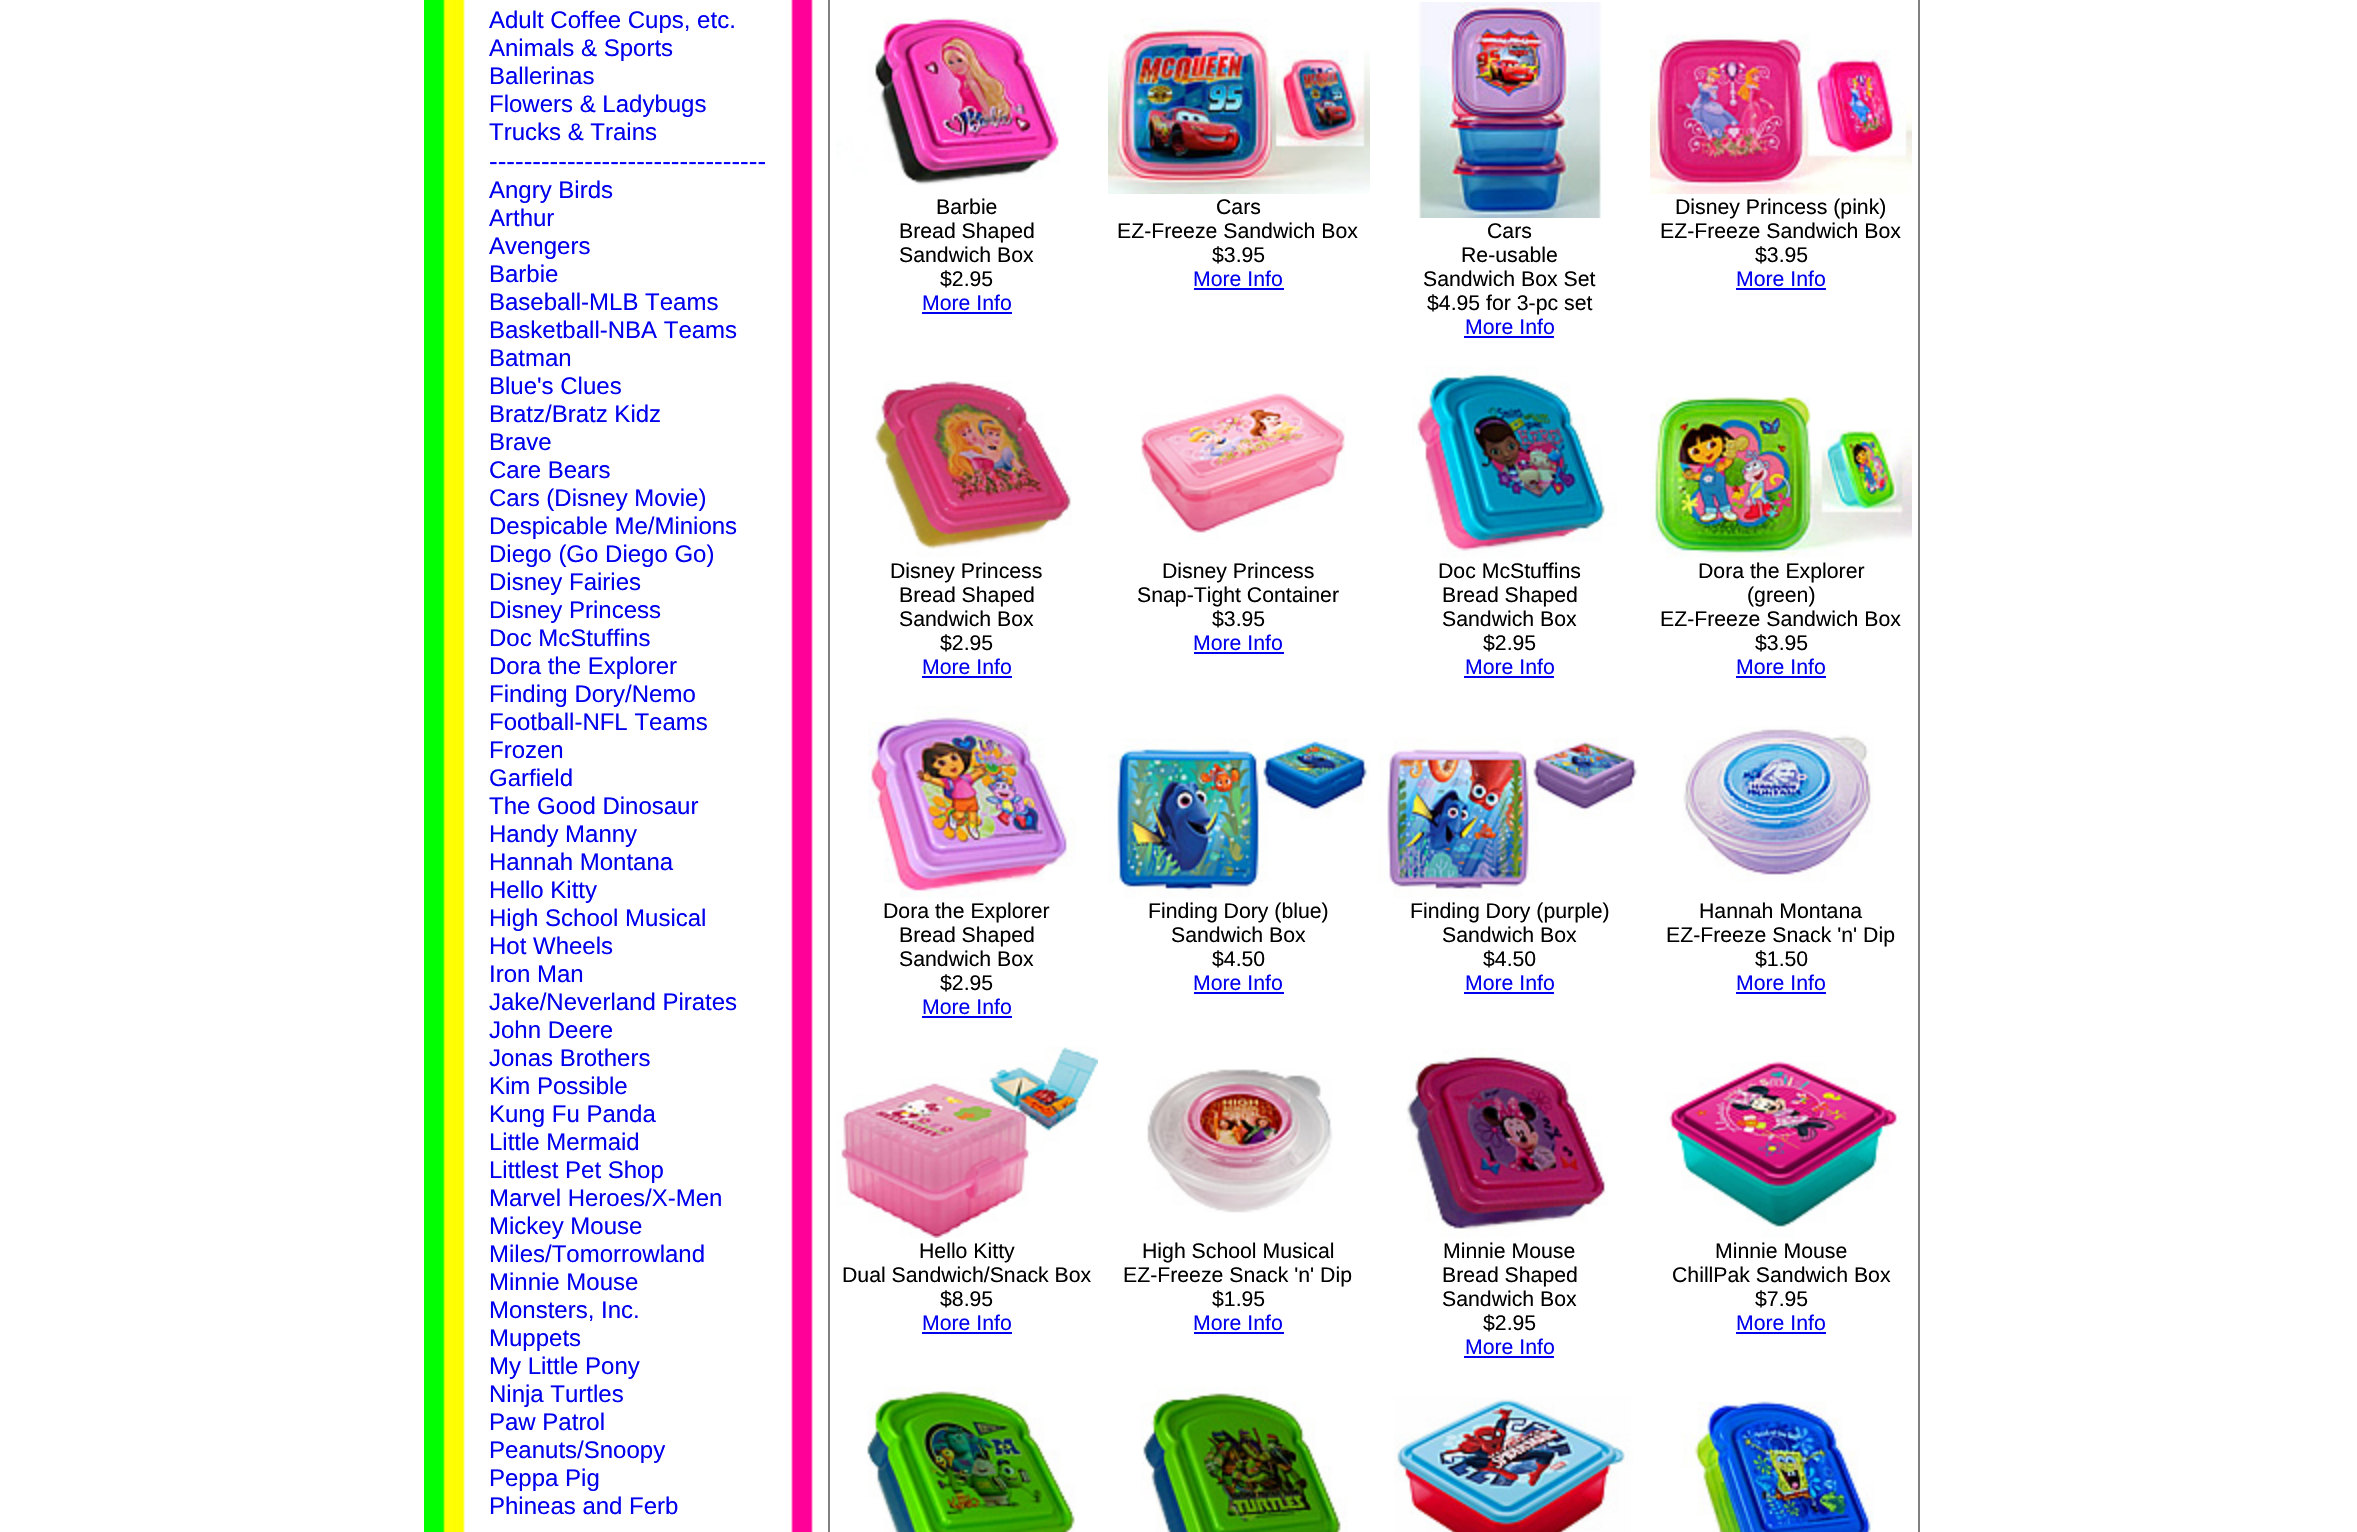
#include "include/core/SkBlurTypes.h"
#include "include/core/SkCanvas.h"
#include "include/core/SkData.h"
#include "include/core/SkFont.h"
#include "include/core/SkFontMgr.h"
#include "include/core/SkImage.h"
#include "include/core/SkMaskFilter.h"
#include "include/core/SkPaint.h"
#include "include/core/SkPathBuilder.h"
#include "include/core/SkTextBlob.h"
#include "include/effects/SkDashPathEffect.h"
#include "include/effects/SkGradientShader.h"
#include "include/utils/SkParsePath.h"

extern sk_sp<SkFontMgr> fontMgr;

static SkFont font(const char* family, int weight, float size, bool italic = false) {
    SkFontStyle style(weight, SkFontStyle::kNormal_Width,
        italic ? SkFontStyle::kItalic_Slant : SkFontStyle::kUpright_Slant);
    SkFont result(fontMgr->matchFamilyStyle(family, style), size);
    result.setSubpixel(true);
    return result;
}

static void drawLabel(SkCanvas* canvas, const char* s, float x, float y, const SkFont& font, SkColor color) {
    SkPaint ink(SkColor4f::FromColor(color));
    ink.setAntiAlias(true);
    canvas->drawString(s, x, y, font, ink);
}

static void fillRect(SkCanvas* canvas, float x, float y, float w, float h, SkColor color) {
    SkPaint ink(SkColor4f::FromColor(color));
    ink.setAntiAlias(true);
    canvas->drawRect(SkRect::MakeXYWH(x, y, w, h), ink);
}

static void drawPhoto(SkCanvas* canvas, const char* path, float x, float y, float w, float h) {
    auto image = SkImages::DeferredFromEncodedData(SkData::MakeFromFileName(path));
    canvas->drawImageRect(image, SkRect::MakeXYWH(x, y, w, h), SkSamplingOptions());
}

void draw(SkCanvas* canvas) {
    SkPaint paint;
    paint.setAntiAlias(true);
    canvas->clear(0xFFFFFFFF);
    drawPhoto(canvas, "assets/img1.png", 424, 0, 389, 1532);
    SkFont font1 = font("Liberation Sans", 400, 24);
    drawLabel(canvas, "Adult Coffee Cups, etc.", 489, 28, font1, 0xFF0000EE);
    drawLabel(canvas, "Animals & Sports", 489, 56, font1, 0xFF0000EE);
    drawLabel(canvas, "Ballerinas", 489, 84, font1, 0xFF0000EE);
    drawLabel(canvas, "Flowers & Ladybugs", 489, 112, font1, 0xFF0000EE);
    drawLabel(canvas, "Trucks & Trains", 489, 140, font1, 0xFF0000EE);
    SkFont font2 = font("Liberation Sans", 400, 26);
    drawLabel(canvas, "--------------------------------", 489, 170, font2, 0xFF0000FF);
    drawLabel(canvas, "Angry Birds", 489, 198, font1, 0xFF0000EE);
    drawLabel(canvas, "Arthur", 489, 226, font1, 0xFF0000EE);
    drawLabel(canvas, "Avengers", 489, 254, font1, 0xFF0000EE);
    drawLabel(canvas, "Barbie", 489, 282, font1, 0xFF0000EE);
    drawLabel(canvas, "Baseball-MLB Teams", 489, 310, font1, 0xFF0000EE);
    drawLabel(canvas, "Basketball-NBA Teams", 489, 338, font1, 0xFF0000EE);
    drawLabel(canvas, "Batman", 489, 366, font1, 0xFF0000EE);
    drawLabel(canvas, "Blue's Clues", 489, 394, font1, 0xFF0000EE);
    drawLabel(canvas, "Bratz/Bratz Kidz", 489, 422, font1, 0xFF0000EE);
    drawLabel(canvas, "Brave", 489, 450, font1, 0xFF0000EE);
    drawLabel(canvas, "Care Bears", 489, 478, font1, 0xFF0000EE);
    drawLabel(canvas, "Cars (Disney Movie)", 489, 506, font1, 0xFF0000EE);
    drawLabel(canvas, "Despicable Me/Minions", 489, 534, font1, 0xFF0000EE);
    drawLabel(canvas, "Diego (Go Diego Go)", 489, 562, font1, 0xFF0000EE);
    drawLabel(canvas, "Disney Fairies", 489, 590, font1, 0xFF0000EE);
    drawLabel(canvas, "Disney Princess", 489, 618, font1, 0xFF0000EE);
    drawLabel(canvas, "Doc McStuffins", 489, 646, font1, 0xFF0000EE);
    drawLabel(canvas, "Dora the Explorer", 489, 674, font1, 0xFF0000EE);
    drawLabel(canvas, "Finding Dory/Nemo", 489, 702, font1, 0xFF0000EE);
    drawLabel(canvas, "Football-NFL Teams", 489, 730, font1, 0xFF0000EE);
    drawLabel(canvas, "Frozen", 489, 758, font1, 0xFF0000EE);
    drawLabel(canvas, "Garfield", 489, 786, font1, 0xFF0000EE);
    drawLabel(canvas, "The Good Dinosaur", 489, 814, font1, 0xFF0000EE);
    drawLabel(canvas, "Handy Manny", 489, 842, font1, 0xFF0000EE);
    drawLabel(canvas, "Hannah Montana", 489, 870, font1, 0xFF0000EE);
    drawLabel(canvas, "Hello Kitty", 489, 898, font1, 0xFF0000EE);
    drawLabel(canvas, "High School Musical", 489, 926, font1, 0xFF0000EE);
    drawLabel(canvas, "Hot Wheels", 489, 954, font1, 0xFF0000EE);
    drawLabel(canvas, "Iron Man", 489, 982, font1, 0xFF0000EE);
    drawLabel(canvas, "Jake/Neverland Pirates", 489, 1010, font1, 0xFF0000EE);
    drawLabel(canvas, "John Deere", 489, 1038, font1, 0xFF0000EE);
    drawLabel(canvas, "Jonas Brothers", 489, 1066, font1, 0xFF0000EE);
    drawLabel(canvas, "Kim Possible", 489, 1094, font1, 0xFF0000EE);
    drawLabel(canvas, "Kung Fu Panda", 489, 1122, font1, 0xFF0000EE);
    drawLabel(canvas, "Little Mermaid", 489, 1150, font1, 0xFF0000EE);
    drawLabel(canvas, "Littlest Pet Shop", 489, 1178, font1, 0xFF0000EE);
    drawLabel(canvas, "Marvel Heroes/X-Men", 489, 1206, font1, 0xFF0000EE);
    drawLabel(canvas, "Mickey Mouse", 489, 1234, font1, 0xFF0000EE);
    drawLabel(canvas, "Miles/Tomorrowland", 489, 1262, font1, 0xFF0000EE);
    drawLabel(canvas, "Minnie Mouse", 489, 1290, font1, 0xFF0000EE);
    drawLabel(canvas, "Monsters, Inc.", 489, 1318, font1, 0xFF0000EE);
    drawLabel(canvas, "Muppets", 489, 1346, font1, 0xFF0000EE);
    drawLabel(canvas, "My Little Pony", 489, 1374, font1, 0xFF0000EE);
    drawLabel(canvas, "Ninja Turtles", 489, 1402, font1, 0xFF0000EE);
    drawLabel(canvas, "Paw Patrol", 489, 1430, font1, 0xFF0000EE);
    drawLabel(canvas, "Peanuts/Snoopy", 489, 1458, font1, 0xFF0000EE);
    drawLabel(canvas, "Peppa Pig", 489, 1486, font1, 0xFF0000EE);
    drawLabel(canvas, "Phineas and Ferb", 489, 1514, font1, 0xFF0000EE);
    fillRect(canvas, 1918, 0, 2, 1532, 0xFF808080);
    fillRect(canvas, 828, 0, 2, 1532, 0xFF808080);
    drawPhoto(canvas, "assets/img2.png", 836, 17, 224, 168);
    SkFont font3 = font("Liberation Sans", 400, 21.25f);
    drawLabel(canvas, "Barbie", 936, 214, font3, 0xFF000000);
    drawLabel(canvas, "Bread Shaped", 899, 238, font3, 0xFF000000);
    drawLabel(canvas, "Sandwich Box", 899, 262, font3, 0xFF000000);
    drawLabel(canvas, "$2.95", 940, 286, font3, 0xFF000000);
    drawLabel(canvas, "More Info", 922, 310, font3, 0xFF0000EE);
    fillRect(canvas, 922, 312, 90, 2, 0xFF0000EE);
    drawPhoto(canvas, "assets/img3.png", 1108, 18, 262, 176);
    drawLabel(canvas, "Cars", 1216, 214, font3, 0xFF000000);
    drawLabel(canvas, "EZ-Freeze Sandwich Box", 1117, 238, font3, 0xFF000000);
    drawLabel(canvas, "$3.95", 1212, 262, font3, 0xFF000000);
    drawLabel(canvas, "More Info", 1193, 286, font3, 0xFF0000EE);
    fillRect(canvas, 1194, 288, 90, 2, 0xFF0000EE);
    drawPhoto(canvas, "assets/img4.png", 1418, 2, 184, 216);
    drawLabel(canvas, "Cars", 1487, 238, font3, 0xFF000000);
    drawLabel(canvas, "Re-usable", 1461, 262, font3, 0xFF000000);
    drawLabel(canvas, "Sandwich Box Set", 1423, 286, font3, 0xFF000000);
    drawLabel(canvas, "$4.95 for 3-pc set", 1427, 310, font3, 0xFF000000);
    drawLabel(canvas, "More Info", 1465, 334, font3, 0xFF0000EE);
    fillRect(canvas, 1464, 336, 90, 2, 0xFF0000EE);
    drawPhoto(canvas, "assets/img5.png", 1650, 34, 262, 160);
    drawLabel(canvas, "Disney Princess (pink)", 1675, 214, font3, 0xFF000000);
    drawLabel(canvas, "EZ-Freeze Sandwich Box", 1660, 238, font3, 0xFF000000);
    drawLabel(canvas, "$3.95", 1755, 262, font3, 0xFF000000);
    drawLabel(canvas, "More Info", 1736, 286, font3, 0xFF0000EE);
    fillRect(canvas, 1736, 288, 90, 2, 0xFF0000EE);
    drawPhoto(canvas, "assets/img6.png", 873, 381, 199, 177);
    drawLabel(canvas, "Disney Princess", 890, 578, font3, 0xFF000000);
    drawLabel(canvas, "Bread Shaped", 899, 602, font3, 0xFF000000);
    drawLabel(canvas, "Sandwich Box", 899, 626, font3, 0xFF000000);
    drawLabel(canvas, "$2.95", 940, 650, font3, 0xFF000000);
    drawLabel(canvas, "More Info", 922, 674, font3, 0xFF0000EE);
    fillRect(canvas, 922, 676, 90, 2, 0xFF0000EE);
    drawPhoto(canvas, "assets/img7.png", 1140, 393, 206, 147);
    drawLabel(canvas, "Disney Princess", 1162, 578, font3, 0xFF000000);
    drawLabel(canvas, "Snap-Tight Container", 1137, 602, font3, 0xFF000000);
    drawLabel(canvas, "$3.95", 1212, 626, font3, 0xFF000000);
    drawLabel(canvas, "More Info", 1193, 650, font3, 0xFF0000EE);
    fillRect(canvas, 1194, 652, 90, 2, 0xFF0000EE);
    drawPhoto(canvas, "assets/img8.png", 1412, 366, 205, 192);
    drawLabel(canvas, "Doc McStuffins", 1438, 578, font3, 0xFF000000);
    drawLabel(canvas, "Bread Shaped", 1442, 602, font3, 0xFF000000);
    drawLabel(canvas, "Sandwich Box", 1442, 626, font3, 0xFF000000);
    drawLabel(canvas, "$2.95", 1483, 650, font3, 0xFF000000);
    drawLabel(canvas, "More Info", 1465, 674, font3, 0xFF0000EE);
    fillRect(canvas, 1464, 676, 90, 2, 0xFF0000EE);
    drawPhoto(canvas, "assets/img9.png", 1650, 397, 262, 161);
    drawLabel(canvas, "Dora the Explorer", 1698, 578, font3, 0xFF000000);
    drawLabel(canvas, "(green)", 1747, 602, font3, 0xFF000000);
    drawLabel(canvas, "EZ-Freeze Sandwich Box", 1660, 626, font3, 0xFF000000);
    drawLabel(canvas, "$3.95", 1755, 650, font3, 0xFF000000);
    drawLabel(canvas, "More Info", 1736, 674, font3, 0xFF0000EE);
    fillRect(canvas, 1736, 676, 90, 2, 0xFF0000EE);
    drawPhoto(canvas, "assets/img10.png", 868, 706, 208, 192);
    drawLabel(canvas, "Dora the Explorer", 883, 918, font3, 0xFF000000);
    drawLabel(canvas, "Bread Shaped", 899, 942, font3, 0xFF000000);
    drawLabel(canvas, "Sandwich Box", 899, 966, font3, 0xFF000000);
    drawLabel(canvas, "$2.95", 940, 990, font3, 0xFF000000);
    drawLabel(canvas, "More Info", 922, 1014, font3, 0xFF0000EE);
    fillRect(canvas, 922, 1016, 90, 2, 0xFF0000EE);
    drawPhoto(canvas, "assets/img11.png", 1108, 738, 262, 160);
    drawLabel(canvas, "Finding Dory (blue)", 1148, 918, font3, 0xFF000000);
    drawLabel(canvas, "Sandwich Box", 1171, 942, font3, 0xFF000000);
    drawLabel(canvas, "$4.50", 1212, 966, font3, 0xFF000000);
    drawLabel(canvas, "More Info", 1193, 990, font3, 0xFF0000EE);
    fillRect(canvas, 1194, 992, 90, 2, 0xFF0000EE);
    drawPhoto(canvas, "assets/img12.png", 1378, 738, 260, 160);
    drawLabel(canvas, "Finding Dory (purple)", 1410, 918, font3, 0xFF000000);
    drawLabel(canvas, "Sandwich Box", 1442, 942, font3, 0xFF000000);
    drawLabel(canvas, "$4.50", 1483, 966, font3, 0xFF000000);
    drawLabel(canvas, "More Info", 1465, 990, font3, 0xFF0000EE);
    fillRect(canvas, 1464, 992, 90, 2, 0xFF0000EE);
    drawPhoto(canvas, "assets/img13.png", 1682, 726, 192, 156);
    drawLabel(canvas, "Hannah Montana", 1699, 918, font3, 0xFF000000);
    drawLabel(canvas, "EZ-Freeze Snack 'n' Dip", 1666, 942, font3, 0xFF000000);
    drawLabel(canvas, "$1.50", 1755, 966, font3, 0xFF000000);
    drawLabel(canvas, "More Info", 1736, 990, font3, 0xFF0000EE);
    fillRect(canvas, 1736, 992, 90, 2, 0xFF0000EE);
    drawPhoto(canvas, "assets/img14.png", 836, 1046, 262, 192);
    drawLabel(canvas, "Hello Kitty", 919, 1258, font3, 0xFF000000);
    drawLabel(canvas, "Dual Sandwich/Snack Box", 842, 1282, font3, 0xFF000000);
    drawLabel(canvas, "$8.95", 940, 1306, font3, 0xFF000000);
    drawLabel(canvas, "More Info", 922, 1330, font3, 0xFF0000EE);
    fillRect(canvas, 922, 1332, 90, 2, 0xFF0000EE);
    drawPhoto(canvas, "assets/img15.png", 1147, 1069, 186, 144);
    drawLabel(canvas, "High School Musical", 1142, 1258, font3, 0xFF000000);
    drawLabel(canvas, "EZ-Freeze Snack 'n' Dip", 1123, 1282, font3, 0xFF000000);
    drawLabel(canvas, "$1.95", 1212, 1306, font3, 0xFF000000);
    drawLabel(canvas, "More Info", 1193, 1330, font3, 0xFF0000EE);
    fillRect(canvas, 1194, 1332, 90, 2, 0xFF0000EE);
    drawPhoto(canvas, "assets/img16.png", 1406, 1048, 202, 190);
    drawLabel(canvas, "Minnie Mouse", 1443, 1258, font3, 0xFF000000);
    drawLabel(canvas, "Bread Shaped", 1442, 1282, font3, 0xFF000000);
    drawLabel(canvas, "Sandwich Box", 1442, 1306, font3, 0xFF000000);
    drawLabel(canvas, "$2.95", 1483, 1330, font3, 0xFF000000);
    drawLabel(canvas, "More Info", 1465, 1354, font3, 0xFF0000EE);
    fillRect(canvas, 1464, 1356, 90, 2, 0xFF0000EE);
    drawPhoto(canvas, "assets/img17.png", 1666, 1061, 236, 177);
    drawLabel(canvas, "Minnie Mouse", 1715, 1258, font3, 0xFF000000);
    drawLabel(canvas, "ChillPak Sandwich Box", 1672, 1282, font3, 0xFF000000);
    drawLabel(canvas, "$7.95", 1755, 1306, font3, 0xFF000000);
    drawLabel(canvas, "More Info", 1736, 1330, font3, 0xFF0000EE);
    fillRect(canvas, 1736, 1332, 90, 2, 0xFF0000EE);
    drawPhoto(canvas, "assets/img18.png", 867, 1386, 209, 146);
    drawPhoto(canvas, "assets/img19.png", 1140, 1386, 208, 146);
    drawPhoto(canvas, "assets/img20.png", 1394, 1397, 239, 135);
    drawPhoto(canvas, "assets/img21.png", 1682, 1401, 192, 131);
}
